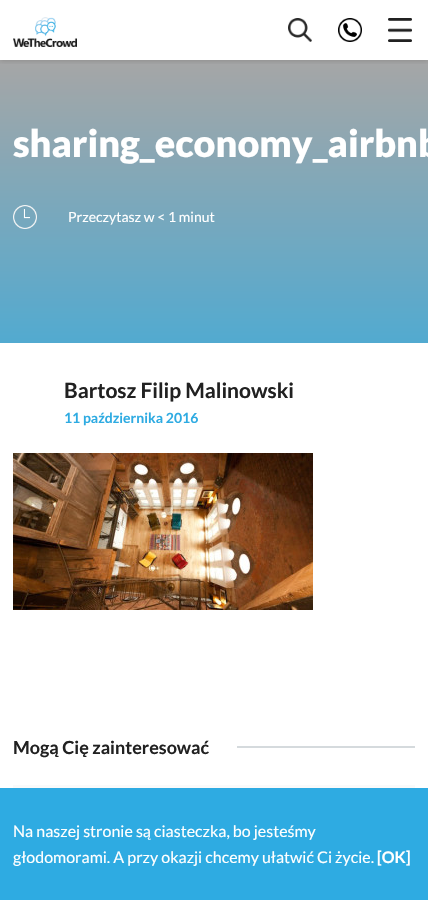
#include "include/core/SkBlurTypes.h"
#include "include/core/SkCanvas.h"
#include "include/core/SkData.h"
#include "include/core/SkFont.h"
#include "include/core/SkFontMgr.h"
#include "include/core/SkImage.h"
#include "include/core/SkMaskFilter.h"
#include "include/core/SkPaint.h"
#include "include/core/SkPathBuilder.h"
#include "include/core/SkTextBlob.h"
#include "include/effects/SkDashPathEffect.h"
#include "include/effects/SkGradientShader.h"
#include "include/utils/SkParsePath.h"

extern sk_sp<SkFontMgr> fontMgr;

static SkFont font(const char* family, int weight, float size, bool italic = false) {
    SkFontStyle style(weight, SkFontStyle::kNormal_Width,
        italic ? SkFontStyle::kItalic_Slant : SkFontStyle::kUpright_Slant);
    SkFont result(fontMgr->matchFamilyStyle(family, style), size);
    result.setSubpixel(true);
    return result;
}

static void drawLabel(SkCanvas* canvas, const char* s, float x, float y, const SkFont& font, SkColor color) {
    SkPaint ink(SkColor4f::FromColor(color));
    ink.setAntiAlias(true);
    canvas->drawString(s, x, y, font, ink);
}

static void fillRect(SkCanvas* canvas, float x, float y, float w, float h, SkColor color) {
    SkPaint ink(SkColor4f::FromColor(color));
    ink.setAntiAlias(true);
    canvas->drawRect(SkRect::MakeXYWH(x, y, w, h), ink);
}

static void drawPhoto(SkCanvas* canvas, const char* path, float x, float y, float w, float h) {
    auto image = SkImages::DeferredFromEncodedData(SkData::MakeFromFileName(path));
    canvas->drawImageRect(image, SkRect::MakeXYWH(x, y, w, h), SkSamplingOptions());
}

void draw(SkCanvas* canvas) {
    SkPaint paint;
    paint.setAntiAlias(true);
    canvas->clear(0xFFFFFFFF);
    {
        const SkColor colors[] = {0xFFA6A6A6, 0xFF52AAD0};
        const float stops[] = {0, 1};
        const SkPoint ends[] = {{214, 60}, {214, 343}};
        paint.setShader(SkGradientShader::MakeLinear(ends, colors, stops, 2, SkTileMode::kClamp));
        paint.setAlpha(255);
    }
    canvas->drawRect(SkRect::MakeXYWH(0, 60, 428, 283), paint);
    canvas->save();
    canvas->clipRect(SkRect::MakeXYWH(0, 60, 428, 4));
    paint.setShader(nullptr);
    paint.setColor(0x26000000);
    paint.setMaskFilter(SkMaskFilter::MakeBlur(kNormal_SkBlurStyle, 2.5f));
    canvas->drawRect(SkRect::MakeXYWH(0, 1, 428, 60), paint);
    paint.setMaskFilter(nullptr);
    canvas->restore();
    drawPhoto(canvas, "assets/img1.png", 13, 17, 64, 30);
    drawPhoto(canvas, "assets/img2.png", 288, 18, 24, 24);
    drawPhoto(canvas, "assets/img3.png", 338, 18, 24, 24);
    drawPhoto(canvas, "assets/img4.png", 388, 18, 24, 24);
    SkFont font1 = font("Lato", 900, 37.75f);
    drawLabel(canvas, "sharing_economy_airbnb", 13, 157, font1, 0xFFFFFFFF);
    drawPhoto(canvas, "assets/img5.png", 13, 205, 24, 24);
    SkFont font2 = font("Lato", 400, 14);
    drawLabel(canvas, "Przeczytasz w < 1 minut", 68, 222, font2, 0xFFFFFFFF);
    SkFont font3 = font("Lato", 700, 21);
    drawLabel(canvas, "Bartosz Filip Malinowski", 64, 398, font3, 0xFF212121);
    SkFont font4 = font("Lato", 700, 14);
    drawLabel(canvas, "11 października 2016", 64, 423, font4, 0xFF2EABE2);
    drawPhoto(canvas, "assets/img6.png", 13, 453, 300, 157);
    SkFont font5 = font("Lato", 700, 18);
    drawLabel(canvas, "Mogą Cię zainteresować", 13, 754, font5, 0xFF212121);
    fillRect(canvas, 237, 746, 178, 2, 0xFFD5DADD);
    fillRect(canvas, 13, 785, 402, 3, 0xFFFAFAFA);
    fillRect(canvas, 0, 788, 428, 112, 0xFF2EABE2);
    SkFont font6 = font("Lato", 400, 16);
    drawLabel(canvas, "Na naszej stronie są ciasteczka, bo jesteśmy", 13, 837, font6, 0xFFFFFFFF);
    drawLabel(canvas, "głodomorami. A przy okazji chcemy ułatwić Ci życie.", 13, 863, font6, 0xFFFFFFFF);
    SkFont font7 = font("Lato", 700, 16);
    drawLabel(canvas, "[OK]", 377, 863, font7, 0xFFFFFFFF);
}
